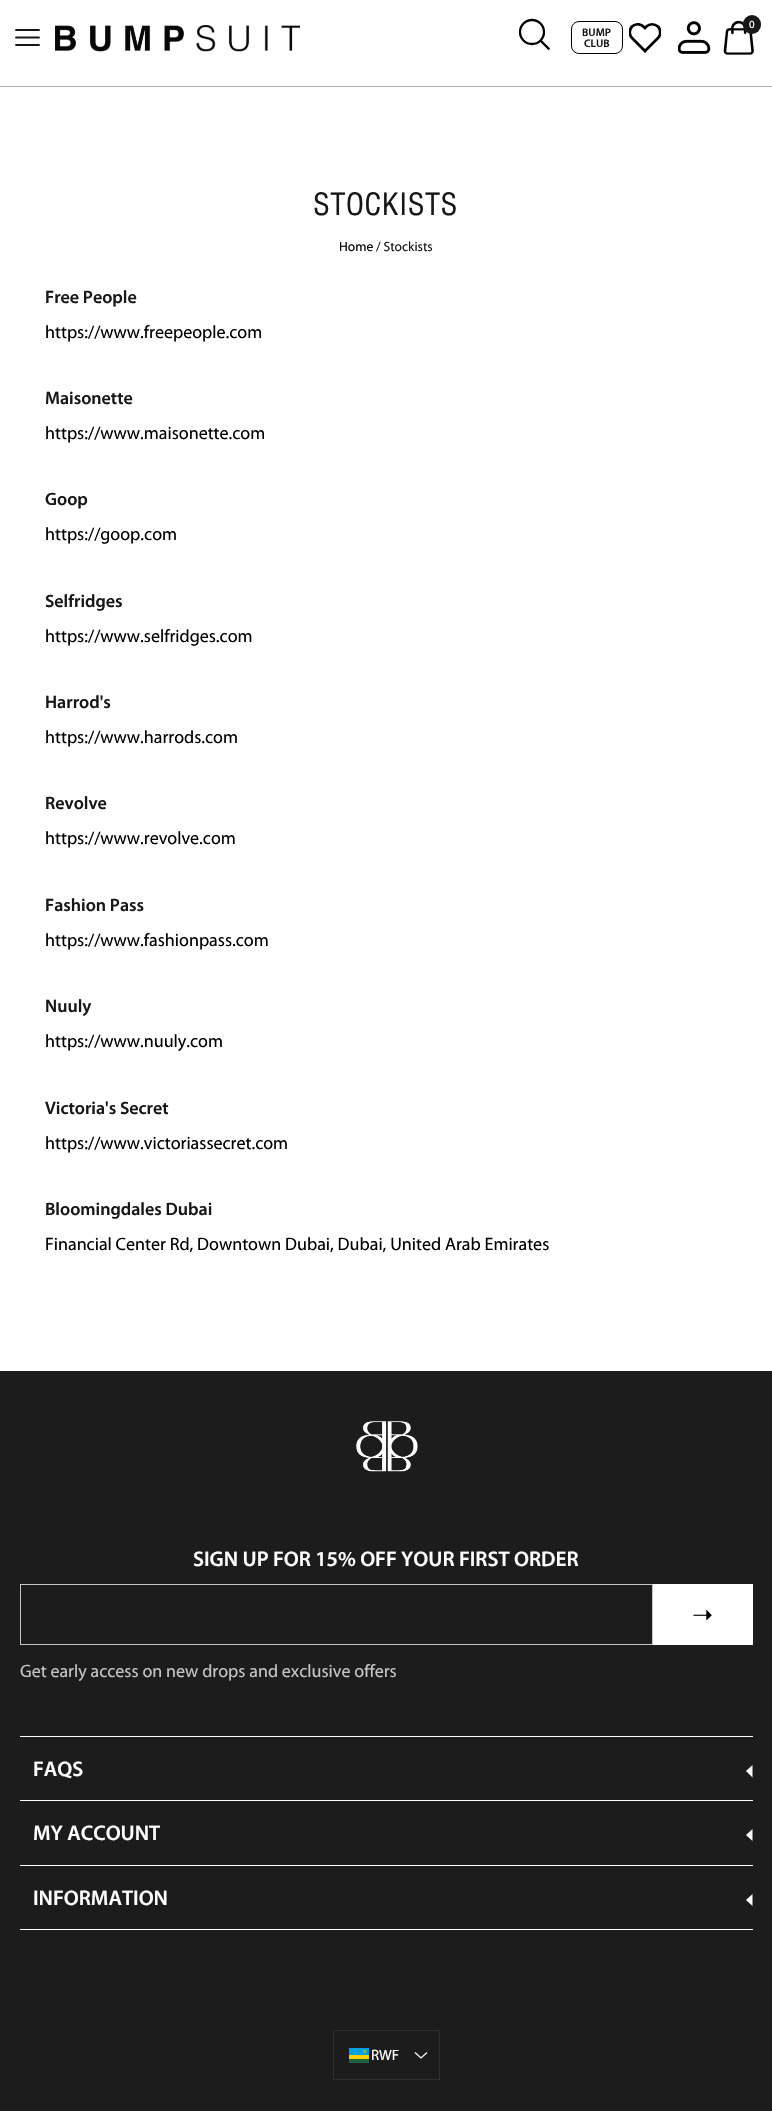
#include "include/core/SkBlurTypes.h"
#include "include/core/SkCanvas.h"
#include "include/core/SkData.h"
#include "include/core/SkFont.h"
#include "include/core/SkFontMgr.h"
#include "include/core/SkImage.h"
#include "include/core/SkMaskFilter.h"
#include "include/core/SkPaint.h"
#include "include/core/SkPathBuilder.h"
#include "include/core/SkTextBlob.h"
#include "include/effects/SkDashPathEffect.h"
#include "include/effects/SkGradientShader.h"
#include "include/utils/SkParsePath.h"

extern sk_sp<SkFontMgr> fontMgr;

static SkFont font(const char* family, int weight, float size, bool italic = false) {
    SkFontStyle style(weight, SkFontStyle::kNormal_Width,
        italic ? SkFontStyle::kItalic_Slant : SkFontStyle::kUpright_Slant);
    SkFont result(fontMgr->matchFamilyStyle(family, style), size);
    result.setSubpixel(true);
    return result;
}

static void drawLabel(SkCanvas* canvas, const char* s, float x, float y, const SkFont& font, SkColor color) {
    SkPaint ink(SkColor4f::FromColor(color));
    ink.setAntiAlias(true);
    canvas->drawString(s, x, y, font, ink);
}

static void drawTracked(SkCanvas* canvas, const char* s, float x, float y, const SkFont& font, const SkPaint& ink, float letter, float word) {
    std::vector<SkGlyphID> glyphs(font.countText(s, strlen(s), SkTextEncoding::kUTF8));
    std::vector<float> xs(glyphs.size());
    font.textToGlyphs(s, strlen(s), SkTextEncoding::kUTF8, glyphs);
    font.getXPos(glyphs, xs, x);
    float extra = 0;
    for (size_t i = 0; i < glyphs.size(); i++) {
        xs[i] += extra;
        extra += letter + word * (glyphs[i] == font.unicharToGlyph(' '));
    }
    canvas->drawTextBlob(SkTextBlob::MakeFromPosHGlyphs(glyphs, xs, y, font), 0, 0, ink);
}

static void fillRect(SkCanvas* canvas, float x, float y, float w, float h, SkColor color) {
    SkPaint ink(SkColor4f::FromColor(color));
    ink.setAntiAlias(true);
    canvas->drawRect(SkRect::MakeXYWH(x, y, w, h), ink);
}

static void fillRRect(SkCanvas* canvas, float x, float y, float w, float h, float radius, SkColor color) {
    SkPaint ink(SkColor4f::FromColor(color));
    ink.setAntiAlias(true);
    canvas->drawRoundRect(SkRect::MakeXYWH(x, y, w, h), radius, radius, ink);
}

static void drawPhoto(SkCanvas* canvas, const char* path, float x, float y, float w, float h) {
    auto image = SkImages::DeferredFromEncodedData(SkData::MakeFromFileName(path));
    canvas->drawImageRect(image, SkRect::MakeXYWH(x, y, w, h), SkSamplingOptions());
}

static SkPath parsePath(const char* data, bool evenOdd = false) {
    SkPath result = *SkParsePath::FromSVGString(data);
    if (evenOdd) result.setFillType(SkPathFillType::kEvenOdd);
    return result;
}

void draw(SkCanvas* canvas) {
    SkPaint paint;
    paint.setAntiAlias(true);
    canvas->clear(0xFFFFFFFF);
    fillRect(canvas, 0, 86, 772, 1, 0xFFB2B2B2);
    paint.setStroke(true);
    paint.setStrokeWidth(1.9f);
    paint.setStrokeCap(SkPaint::kRound_Cap);
    paint.setStrokeJoin(SkPaint::kRound_Join);
    paint.setColor(0xFF171717);
    canvas->drawPath(parsePath("M16 37.5H39M16 30H39M16 45H39"), paint);
    drawPhoto(canvas, "assets/img1.png", 55, 25, 245, 27);
    paint.setStrokeWidth(2.3f);
    paint.setStrokeCap(SkPaint::kButt_Cap);
    paint.setStrokeJoin(SkPaint::kMiter_Join);
    paint.setColor(0xFF000000);
    canvas->drawCircle(532, 32, 12, paint);
    paint.setStrokeCap(SkPaint::kSquare_Cap);
    canvas->drawPath(parsePath("M541.5 41.5L548.5 48.5"), paint);
    paint.setStrokeWidth(1);
    paint.setStrokeCap(SkPaint::kButt_Cap);
    canvas->drawRoundRect(SkRect::MakeXYWH(571.5f, 21.5f, 51, 32), 7.5f, 7.5f, paint);
    SkFont font1 = font("Myriad", 600, 11);
    drawLabel(canvas, "BUMP", 582, 36, font1, 0xFF171717);
    drawLabel(canvas, "CLUB", 584, 47, font1, 0xFF171717);
    canvas->save();
    canvas->clipRect(SkRect::MakeXYWH(629, 20, 32, 35));
    paint.setStrokeWidth(2.7f);
    canvas->drawPath(parsePath("M632 26.5C636.5 22.5 641.5 24.5 645 28L646.5 26.5C649.5 23.5 654.5 23.5 658 26.5C661 30 661 35 658 38L645 51L632 38C629 35 629 30 632 26.5Z"), paint);
    canvas->restore();
    drawPhoto(canvas, "assets/img2.png", 678, 21, 33, 33);
    drawPhoto(canvas, "assets/img3.png", 723, 20, 31, 35);
    fillRRect(canvas, 743, 15, 18, 19, 9, 0xFF171717);
    SkFont font2 = font("Myriad", 400, 11);
    drawLabel(canvas, "0", 749, 28, font2, 0xFFFFFFFF);
    SkFont font3 = font("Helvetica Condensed", 400, 30);
    paint.setStroke(false);
    paint.setColor(0xFF171717);
    drawTracked(canvas, "STOCKISTS", 313, 215, font3, paint, 0.5f, 0);
    SkFont font4 = font("Myriad", 400, 13.5f);
    drawLabel(canvas, "Home", 339, 251, font4, 0xFF000000);
    drawLabel(canvas, "/ Stockists", 376, 251, font4, 0xFF171717);
    SkFont font5 = font("Myriad", 600, 18);
    drawLabel(canvas, "Free People", 45, 303, font5, 0xFF171717);
    SkFont font6 = font("Myriad", 400, 18);
    drawLabel(canvas, "https://www.freepeople.com", 45, 338, font6, 0xFF000000);
    drawLabel(canvas, "Maisonette", 45, 404, font5, 0xFF171717);
    drawLabel(canvas, "https://www.maisonette.com", 45, 439, font6, 0xFF000000);
    drawLabel(canvas, "Goop", 45, 505, font5, 0xFF171717);
    drawLabel(canvas, "https://goop.com", 45, 540, font6, 0xFF000000);
    drawLabel(canvas, "Selfridges", 45, 607, font5, 0xFF171717);
    drawLabel(canvas, "https://www.selfridges.com", 45, 642, font6, 0xFF000000);
    drawLabel(canvas, "Harrod's", 45, 708, font5, 0xFF171717);
    drawLabel(canvas, "https://www.harrods.com", 45, 743, font6, 0xFF000000);
    drawLabel(canvas, "Revolve", 45, 809, font5, 0xFF171717);
    drawLabel(canvas, "https://www.revolve.com", 45, 844, font6, 0xFF000000);
    drawLabel(canvas, "Fashion Pass", 45, 911, font5, 0xFF171717);
    drawLabel(canvas, "https://www.fashionpass.com", 45, 946, font6, 0xFF000000);
    drawLabel(canvas, "Nuuly", 45, 1012, font5, 0xFF171717);
    drawLabel(canvas, "https://www.nuuly.com", 45, 1047, font6, 0xFF000000);
    drawLabel(canvas, "Victoria's Secret", 45, 1114, font5, 0xFF171717);
    drawLabel(canvas, "https://www.victoriassecret.com", 45, 1149, font6, 0xFF000000);
    drawLabel(canvas, "Bloomingdales Dubai", 45, 1215, font5, 0xFF171717);
    drawLabel(canvas, "Financial Center Rd, Downtown Dubai, Dubai, United Arab Emirates", 45, 1250, font6, 0xFF000000);
    fillRect(canvas, 0, 1371, 772, 740, 0xFF1C1C1C);
    drawPhoto(canvas, "assets/img4.png", 356, 1421, 62, 51);
    SkFont font7 = font("Myriad", 600, 21.25f);
    drawLabel(canvas, "SIGN UP FOR 15% OFF YOUR FIRST ORDER", 193, 1566, font7, 0xFFFFFFFF);
    paint.setStroke(true);
    paint.setStrokeWidth(1);
    paint.setColor(0xFFC5C5C5);
    canvas->drawRect(SkRect::MakeXYWH(20.5f, 1584.5f, 632, 60), paint);
    fillRect(canvas, 653, 1584, 100, 61, 0xFFFFFFFF);
    SkFont font8 = font("DejaVu Sans", 400, 25);
    drawLabel(canvas, "➝", 692, 1623, font8, 0xFF000000);
    drawLabel(canvas, "Get early access on new drops and exclusive offers", 20, 1677, font6, 0xFFC6C6C6);
    fillRect(canvas, 20, 1736, 733, 1, 0xFFFFFFFF);
    fillRect(canvas, 20, 1800, 733, 1, 0xFFFFFFFF);
    drawLabel(canvas, "FAQS", 33, 1776, font7, 0xFFFFFFFF);
    paint.setStroke(false);
    paint.setColor(0xFFFFFFFF);
    canvas->drawPath(parsePath("M746 1771L752.5 1777.5V1765Z"), paint);
    fillRect(canvas, 20, 1865, 733, 1, 0xFFFFFFFF);
    drawLabel(canvas, "MY ACCOUNT", 33, 1840, font7, 0xFFFFFFFF);
    canvas->drawPath(parsePath("M746 1835L752.5 1841V1829Z"), paint);
    fillRect(canvas, 20, 1929, 733, 1, 0xFFFFFFFF);
    drawLabel(canvas, "INFORMATION", 33, 1905, font7, 0xFFFFFFFF);
    canvas->drawPath(parsePath("M746 1900L752.5 1906V1894Z"), paint);
    paint.setStroke(true);
    paint.setColor(0xFF2F2F2F);
    canvas->drawRect(SkRect::MakeXYWH(333.5f, 2030.5f, 106, 49), paint);
    drawPhoto(canvas, "assets/img5.png", 349, 2048, 20, 15);
    SkFont font9 = font("Myriad", 400, 15);
    drawLabel(canvas, "RWF", 371, 2060, font9, 0xFFFFFFFF);
    paint.setStrokeWidth(1.2f);
    paint.setColor(0xFFFFFFFF);
    canvas->drawPath(parsePath("M427 2052.5L421 2058L415 2052.5"), paint);
}
